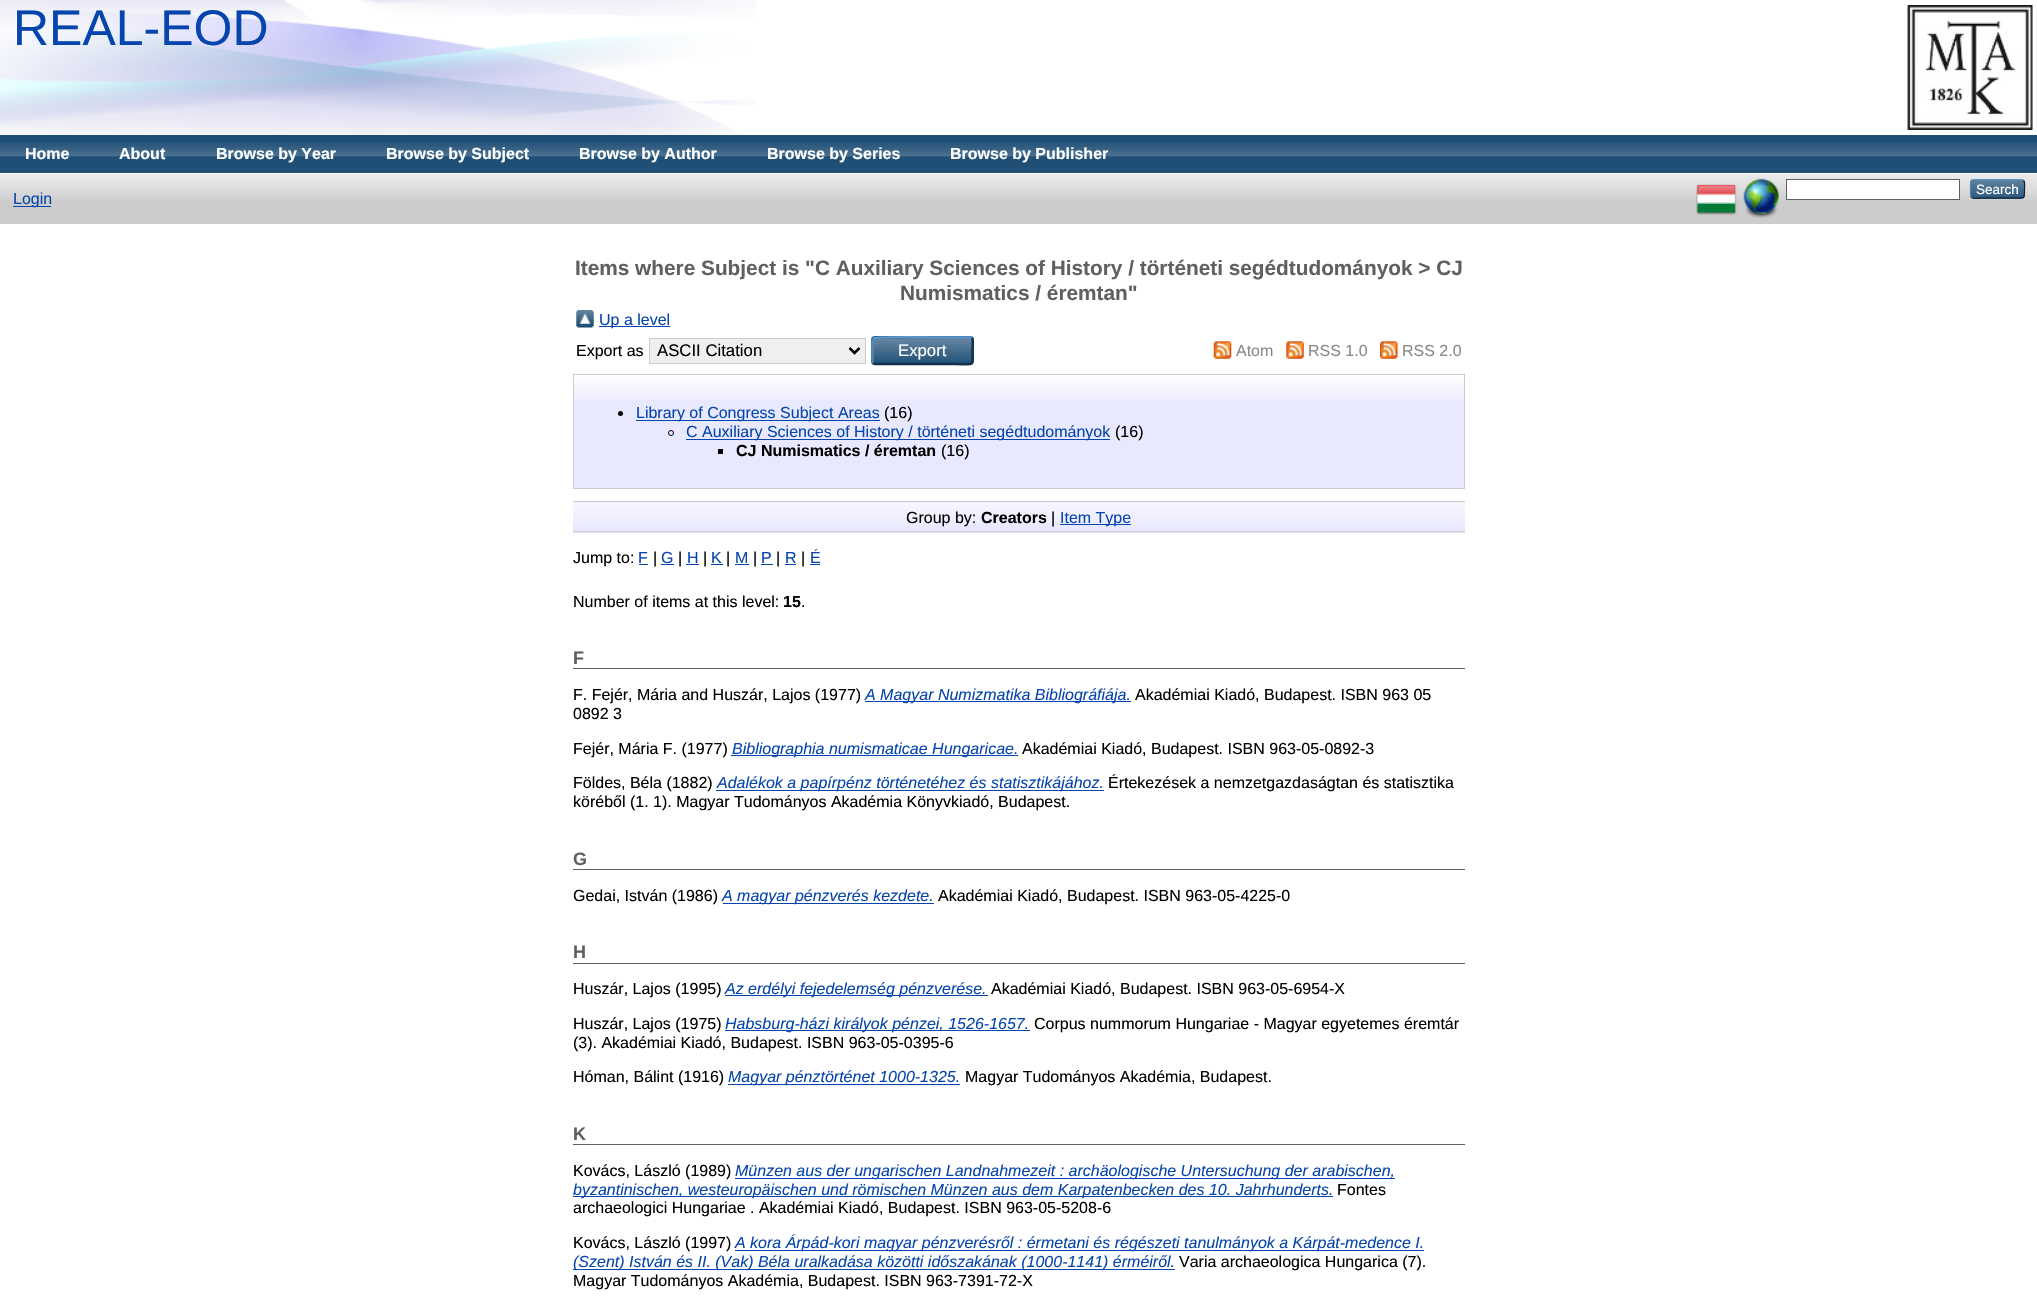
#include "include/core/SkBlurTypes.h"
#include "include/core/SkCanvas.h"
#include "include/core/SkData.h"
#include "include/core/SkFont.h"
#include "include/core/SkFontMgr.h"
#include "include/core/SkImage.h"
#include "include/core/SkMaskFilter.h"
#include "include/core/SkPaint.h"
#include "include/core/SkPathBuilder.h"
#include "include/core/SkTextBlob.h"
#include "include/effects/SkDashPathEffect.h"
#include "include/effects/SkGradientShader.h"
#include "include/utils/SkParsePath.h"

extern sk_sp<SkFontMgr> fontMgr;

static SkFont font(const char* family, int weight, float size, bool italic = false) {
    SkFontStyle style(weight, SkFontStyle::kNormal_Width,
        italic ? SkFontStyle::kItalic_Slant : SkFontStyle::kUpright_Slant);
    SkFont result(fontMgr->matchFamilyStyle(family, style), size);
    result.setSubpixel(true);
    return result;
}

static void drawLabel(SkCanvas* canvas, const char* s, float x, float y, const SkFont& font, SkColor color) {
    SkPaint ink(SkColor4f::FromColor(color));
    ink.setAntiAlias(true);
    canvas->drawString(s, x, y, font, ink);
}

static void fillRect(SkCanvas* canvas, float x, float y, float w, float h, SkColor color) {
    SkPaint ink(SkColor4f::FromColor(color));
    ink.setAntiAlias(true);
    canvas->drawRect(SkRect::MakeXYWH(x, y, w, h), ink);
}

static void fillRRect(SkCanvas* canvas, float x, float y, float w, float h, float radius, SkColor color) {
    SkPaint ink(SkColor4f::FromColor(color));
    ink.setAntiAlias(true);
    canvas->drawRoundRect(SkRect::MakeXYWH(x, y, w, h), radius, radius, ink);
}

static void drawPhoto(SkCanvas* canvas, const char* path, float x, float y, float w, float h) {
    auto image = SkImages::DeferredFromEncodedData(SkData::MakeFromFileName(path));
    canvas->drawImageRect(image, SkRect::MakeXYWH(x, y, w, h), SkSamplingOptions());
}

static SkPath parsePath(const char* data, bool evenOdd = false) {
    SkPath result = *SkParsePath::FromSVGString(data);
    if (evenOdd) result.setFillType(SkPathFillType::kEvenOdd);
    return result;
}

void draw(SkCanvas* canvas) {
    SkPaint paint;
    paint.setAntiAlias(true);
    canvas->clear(0xFFFFFFFF);
    drawPhoto(canvas, "assets/img1.png", 0, 0, 756, 135);
    SkFont font1 = font("Liberation Sans", 400, 50);
    drawLabel(canvas, "REAL-EOD", 13, 45, font1, 0xFF0645AD);
    drawPhoto(canvas, "assets/img2.png", 1907, 5, 126, 125);
    fillRect(canvas, 0, 135, 2037, 38, 0xFF204F76);
    drawPhoto(canvas, "assets/img3.png", 0, 142, 2037, 15);
    SkFont font2 = font("Liberation Sans", 700, 16);
    drawLabel(canvas, "Home", 25, 159, font2, 0xFFFFFFFF);
    drawLabel(canvas, "About", 119, 159, font2, 0xFFFFFFFF);
    drawLabel(canvas, "Browse by Year", 216, 159, font2, 0xFFFFFFFF);
    drawLabel(canvas, "Browse by Subject", 386, 159, font2, 0xFFFFFFFF);
    drawLabel(canvas, "Browse by Author", 579, 159, font2, 0xFFFFFFFF);
    drawLabel(canvas, "Browse by Series", 767, 159, font2, 0xFFFFFFFF);
    drawLabel(canvas, "Browse by Publisher", 950, 159, font2, 0xFFFFFFFF);
    fillRect(canvas, 0, 174, 2037, 50, 0xFFCCCCCC);
    drawPhoto(canvas, "assets/img4.png", 0, 174, 2037, 27);
    drawPhoto(canvas, "assets/img5.png", 1696, 184, 41, 31);
    drawPhoto(canvas, "assets/img6.png", 1743, 178, 36, 41);
    paint.setColor(0xFFFFFFFF);
    canvas->drawRect(SkRect::MakeXYWH(1786.5f, 179.5f, 173, 20), paint);
    paint.setStroke(true);
    paint.setStrokeWidth(1);
    paint.setColor(0xFF606060);
    canvas->drawRect(SkRect::MakeXYWH(1786.5f, 179.5f, 173, 20), paint);
    fillRRect(canvas, 1970, 179, 55, 20, 4, 0xFF1F4F76);
    drawPhoto(canvas, "assets/img7.png", 1970, 179, 55, 20);
    paint.setStrokeWidth(1.2f);
    paint.setColor(0xFF5B97C7);
    canvas->drawPath(parsePath("M1971.5 180.5L1973.5 179.5H2021.5L2023.5 180.5"), paint);
    paint.setColor(0xFF0D2131);
    canvas->drawPath(parsePath("M2023.5 180.5C2025.5 182.5 2024.5 186.5 2024.5 189C2024.5 199.5 2025 198 2013.5 198H1981.5C1981 198 1973.5 199.5 1971.5 197"), paint);
    paint.setColor(0xFF5287B3);
    canvas->drawPath(parsePath("M1971.5 197C1970 195.5 1970.5 191 1970.5 189C1970.5 186.5 1970 182 1971.5 180.5"), paint);
    SkFont font3 = font("Liberation Sans", 400, 13.5f);
    drawLabel(canvas, "Search", 1976, 194, font3, 0xFFFFFFFF);
    fillRect(canvas, 13, 206, 38, 1, 0xFF0645AD);
    SkFont font4 = font("Liberation Sans", 400, 16);
    drawLabel(canvas, "Login", 13, 204, font4, 0xFF0645AD);
    SkFont font5 = font("Liberation Sans", 700, 20.8f);
    drawLabel(canvas, "Items where Subject is \"C Auxiliary Sciences of History / történeti segédtudományok > CJ", 575, 275, font5, 0xFF606060);
    drawLabel(canvas, "Numismatics / éremtan\"", 900, 300, font5, 0xFF606060);
    drawPhoto(canvas, "assets/img8.png", 576, 310, 18, 18);
    fillRect(canvas, 599, 326, 71, 1, 0xFF0645AD);
    drawLabel(canvas, "Up a level", 599, 325, font4, 0xFF0645AD);
    drawLabel(canvas, "Export as", 576, 356, font4, 0xFF000000);
    paint.setStroke(false);
    paint.setColor(0xFFEFEFEF);
    canvas->drawRect(SkRect::MakeXYWH(649.5f, 338.5f, 216, 25), paint);
    paint.setStroke(true);
    paint.setStrokeWidth(1);
    paint.setColor(0xFFCCCCCC);
    canvas->drawRect(SkRect::MakeXYWH(649.5f, 338.5f, 216, 25), paint);
    paint.setStrokeWidth(2.5f);
    paint.setColor(0xFF000000);
    canvas->drawPath(parsePath("M849.5 348L854.5 353L859.5 348"), paint);
    SkFont font6 = font("Liberation Sans", 400, 16.75f);
    drawLabel(canvas, "ASCII Citation", 657, 356, font6, 0xFF000000);
    fillRRect(canvas, 871, 336, 103, 29, 4, 0xFF1F4F76);
    drawPhoto(canvas, "assets/img9.png", 871, 338, 103, 24);
    paint.setColor(0xFF5B97C7);
    canvas->drawPath(parsePath("M873 338H873.5C875.5 336.5 946 337.5 954 337.5H970L972 338"), paint);
    paint.setColor(0xFF13324A);
    canvas->drawPath(parsePath("M972 338C973.5 340 972.5 348 972.5 350.5C972.5 368 974.5 364 954 364H875L873 363"), paint);
    paint.setColor(0xFF5287B3);
    canvas->drawPath(parsePath("M873 363C873 362.5 872.5 362 872.5 361V340C872.5 339.5 873 338.5 873 338"), paint);
    drawLabel(canvas, "Export", 898, 356, font6, 0xFFFFFFFF);
    drawPhoto(canvas, "assets/img10.png", 1213, 341, 19, 18);
    drawLabel(canvas, "Atom", 1236, 356, font4, 0xFF888888);
    drawPhoto(canvas, "assets/img11.png", 1286, 341, 18, 18);
    drawLabel(canvas, "RSS 1.0", 1308, 356, font4, 0xFF888888);
    drawPhoto(canvas, "assets/img12.png", 1380, 341, 18, 18);
    drawLabel(canvas, "RSS 2.0", 1402, 356, font4, 0xFF888888);
    fillRect(canvas, 574, 376, 890, 112, 0xFFE8E8FF);
    drawPhoto(canvas, "assets/img13.png", 574, 375, 890, 25);
    paint.setStrokeWidth(1);
    paint.setColor(0xFFCCCCCC);
    canvas->drawRect(SkRect::MakeXYWH(573.5f, 374.5f, 891, 114), paint);
    paint.setStroke(false);
    paint.setColor(0xFF000000);
    canvas->drawCircle(620.5f, 413.5f, 2.5f, paint);
    fillRect(canvas, 636, 420, 244, 1, 0xFF0645AD);
    drawLabel(canvas, "Library of Congress Subject Areas", 636, 418, font4, 0xFF0645AD);
    drawLabel(canvas, "(16)", 884, 418, font4, 0xFF000000);
    paint.setStroke(true);
    canvas->drawCircle(671, 433, 2.5f, paint);
    fillRect(canvas, 686, 439, 424, 1, 0xFF0645AD);
    drawLabel(canvas, "C Auxiliary Sciences of History / történeti segédtudományok", 686, 437, font4, 0xFF0645AD);
    drawLabel(canvas, "(16)", 1115, 437, font4, 0xFF000000);
    fillRect(canvas, 718, 449, 5, 5, 0xFF000000);
    drawLabel(canvas, "CJ Numismatics / éremtan", 736, 456, font2, 0xFF000000);
    drawLabel(canvas, "(16)", 941, 456, font4, 0xFF000000);
    fillRect(canvas, 573, 502, 892, 31, 0xFFE8E8FF);
    drawPhoto(canvas, "assets/img14.png", 573, 502, 892, 23);
    fillRect(canvas, 573, 501, 892, 1, 0xFFCCCCCC);
    fillRect(canvas, 573, 531, 892, 1, 0xFFCCCCCC);
    drawLabel(canvas, "Group by:", 906, 523, font4, 0xFF000000);
    drawLabel(canvas, "Creators", 981, 523, font2, 0xFF000000);
    drawLabel(canvas, "|", 1051, 523, font4, 0xFF000000);
    fillRect(canvas, 1060, 524, 71, 1, 0xFF0645AD);
    drawLabel(canvas, "Item Type", 1060, 523, font4, 0xFF0645AD);
    drawLabel(canvas, "Jump to:", 573, 563, font4, 0xFF000000);
    drawLabel(canvas, "F", 638, 563, font4, 0xFF0645AD);
    fillRect(canvas, 639, 564, 9, 1, 0xFF0645AD);
    drawLabel(canvas, "|", 653, 563, font4, 0xFF000000);
    drawLabel(canvas, "G", 661, 563, font4, 0xFF0645AD);
    fillRect(canvas, 661, 564, 13, 1, 0xFF0645AD);
    drawLabel(canvas, "|", 678, 563, font4, 0xFF000000);
    drawLabel(canvas, "H", 687, 563, font4, 0xFF0645AD);
    fillRect(canvas, 686, 564, 13, 1, 0xFF0645AD);
    drawLabel(canvas, "|", 703, 563, font4, 0xFF000000);
    drawLabel(canvas, "K", 711, 563, font4, 0xFF0645AD);
    fillRect(canvas, 711, 564, 12, 1, 0xFF0645AD);
    drawLabel(canvas, "|", 726, 563, font4, 0xFF000000);
    drawLabel(canvas, "M", 735, 563, font4, 0xFF0645AD);
    fillRect(canvas, 735, 564, 14, 1, 0xFF0645AD);
    drawLabel(canvas, "|", 753, 563, font4, 0xFF000000);
    drawLabel(canvas, "P", 761, 563, font4, 0xFF0645AD);
    fillRect(canvas, 761, 564, 12, 1, 0xFF0645AD);
    drawLabel(canvas, "|", 776, 563, font4, 0xFF000000);
    drawLabel(canvas, "R", 785, 563, font4, 0xFF0645AD);
    fillRect(canvas, 785, 564, 11, 1, 0xFF0645AD);
    drawLabel(canvas, "|", 801, 563, font4, 0xFF000000);
    drawLabel(canvas, "É", 810, 563, font4, 0xFF0645AD);
    fillRect(canvas, 810, 564, 10, 1, 0xFF0645AD);
    drawLabel(canvas, "Number of items at this level:", 573, 607, font4, 0xFF000000);
    drawLabel(canvas, "15", 783, 607, font2, 0xFF000000);
    drawLabel(canvas, ".", 801, 607, font4, 0xFF000000);
    fillRect(canvas, 573, 668, 892, 1, 0xFF606060);
    SkFont font7 = font("Liberation Sans", 700, 18);
    drawLabel(canvas, "F", 573, 664, font7, 0xFF606060);
    drawLabel(canvas, "F. Fejér, Mária and Huszár, Lajos (1977)", 573, 700, font4, 0xFF000000);
    fillRect(canvas, 865, 701, 266, 1, 0xFF0645AD);
    SkFont font8 = font("Liberation Sans", 400, 16, true);
    drawLabel(canvas, "A Magyar Numizmatika Bibliográfiája.", 865, 700, font8, 0xFF0645AD);
    drawLabel(canvas, "Akadémiai Kiadó, Budapest. ISBN 963 05", 1135, 700, font4, 0xFF000000);
    drawLabel(canvas, "0892 3", 573, 719, font4, 0xFF000000);
    drawLabel(canvas, "Fejér, Mária F. (1977)", 573, 754, font4, 0xFF000000);
    fillRect(canvas, 731, 755, 287, 1, 0xFF0645AD);
    drawLabel(canvas, "Bibliographia numismaticae Hungaricae.", 732, 754, font8, 0xFF0645AD);
    drawLabel(canvas, "Akadémiai Kiadó, Budapest. ISBN 963-05-0892-3", 1022, 754, font4, 0xFF000000);
    drawLabel(canvas, "Földes, Béla (1882)", 573, 788, font4, 0xFF000000);
    fillRect(canvas, 716, 790, 388, 1, 0xFF0645AD);
    drawLabel(canvas, "Adalékok a papírpénz történetéhez és statisztikájához.", 717, 788, font8, 0xFF0645AD);
    drawLabel(canvas, "Értekezések a nemzetgazdaságtan és statisztika", 1108, 788, font4, 0xFF000000);
    drawLabel(canvas, "köréből (1. 1). Magyar Tudományos Akadémia Könyvkiadó, Budapest.", 573, 807, font4, 0xFF000000);
    fillRect(canvas, 573, 869, 892, 1, 0xFF606060);
    drawLabel(canvas, "G", 573, 865, font7, 0xFF606060);
    drawLabel(canvas, "Gedai, István (1986)", 573, 901, font4, 0xFF000000);
    fillRect(canvas, 723, 903, 211, 1, 0xFF0645AD);
    drawLabel(canvas, "A magyar pénzverés kezdete.", 722, 901, font8, 0xFF0645AD);
    drawLabel(canvas, "Akadémiai Kiadó, Budapest. ISBN 963-05-4225-0", 938, 901, font4, 0xFF000000);
    fillRect(canvas, 573, 963, 892, 1, 0xFF606060);
    drawLabel(canvas, "H", 573, 958, font7, 0xFF606060);
    drawLabel(canvas, "Huszár, Lajos (1995)", 573, 994, font4, 0xFF000000);
    fillRect(canvas, 725, 995, 263, 1, 0xFF0645AD);
    drawLabel(canvas, "Az erdélyi fejedelemség pénzverése.", 725, 994, font8, 0xFF0645AD);
    drawLabel(canvas, "Akadémiai Kiadó, Budapest. ISBN 963-05-6954-X", 991, 994, font4, 0xFF000000);
    drawLabel(canvas, "Huszár, Lajos (1975)", 573, 1029, font4, 0xFF000000);
    fillRect(canvas, 725, 1030, 305, 1, 0xFF0645AD);
    drawLabel(canvas, "Habsburg-házi királyok pénzei, 1526-1657.", 725, 1029, font8, 0xFF0645AD);
    drawLabel(canvas, "Corpus nummorum Hungariae - Magyar egyetemes éremtár", 1034, 1029, font4, 0xFF000000);
    drawLabel(canvas, "(3). Akadémiai Kiadó, Budapest. ISBN 963-05-0395-6", 573, 1048, font4, 0xFF000000);
    drawLabel(canvas, "Hóman, Bálint (1916)", 573, 1082, font4, 0xFF000000);
    fillRect(canvas, 728, 1084, 232, 1, 0xFF0645AD);
    drawLabel(canvas, "Magyar pénztörténet 1000-1325.", 728, 1082, font8, 0xFF0645AD);
    drawLabel(canvas, "Magyar Tudományos Akadémia, Budapest.", 965, 1082, font4, 0xFF000000);
    fillRect(canvas, 573, 1144, 892, 1, 0xFF606060);
    drawLabel(canvas, "K", 573, 1140, font7, 0xFF606060);
    drawLabel(canvas, "Kovács, László (1989)", 573, 1176, font4, 0xFF000000);
    fillRect(canvas, 735, 1178, 660, 1, 0xFF0645AD);
    drawLabel(canvas, "Münzen aus der ungarischen Landnahmezeit : archäologische Untersuchung der arabischen,", 735, 1176, font8, 0xFF0645AD);
    fillRect(canvas, 573, 1196, 760, 1, 0xFF0645AD);
    drawLabel(canvas, "byzantinischen, westeuropäischen und römischen Münzen aus dem Karpatenbecken des 10. Jahrhunderts.", 573, 1195, font8, 0xFF0645AD);
    drawLabel(canvas, "Fontes", 1337, 1195, font4, 0xFF000000);
    drawLabel(canvas, "archaeologici Hungariae . Akadémiai Kiadó, Budapest. ISBN 963-05-5208-6", 573, 1213, font4, 0xFF000000);
    drawLabel(canvas, "Kovács, László (1997)", 573, 1248, font4, 0xFF000000);
    fillRect(canvas, 735, 1250, 689, 1, 0xFF0645AD);
    drawLabel(canvas, "A kora Árpád-kori magyar pénzverésről : érmetani és régészeti tanulmányok a Kárpát-medence I.", 735, 1248, font8, 0xFF0645AD);
    fillRect(canvas, 573, 1269, 602, 1, 0xFF0645AD);
    drawLabel(canvas, "(Szent) István és II. (Vak) Béla uralkadása közötti időszakának (1000-1141) érméiről.", 573, 1267, font8, 0xFF0645AD);
    drawLabel(canvas, "Varia archaeologica Hungarica (7).", 1179, 1267, font4, 0xFF000000);
    drawLabel(canvas, "Magyar Tudományos Akadémia, Budapest. ISBN 963-7391-72-X", 573, 1286, font4, 0xFF000000);
}
